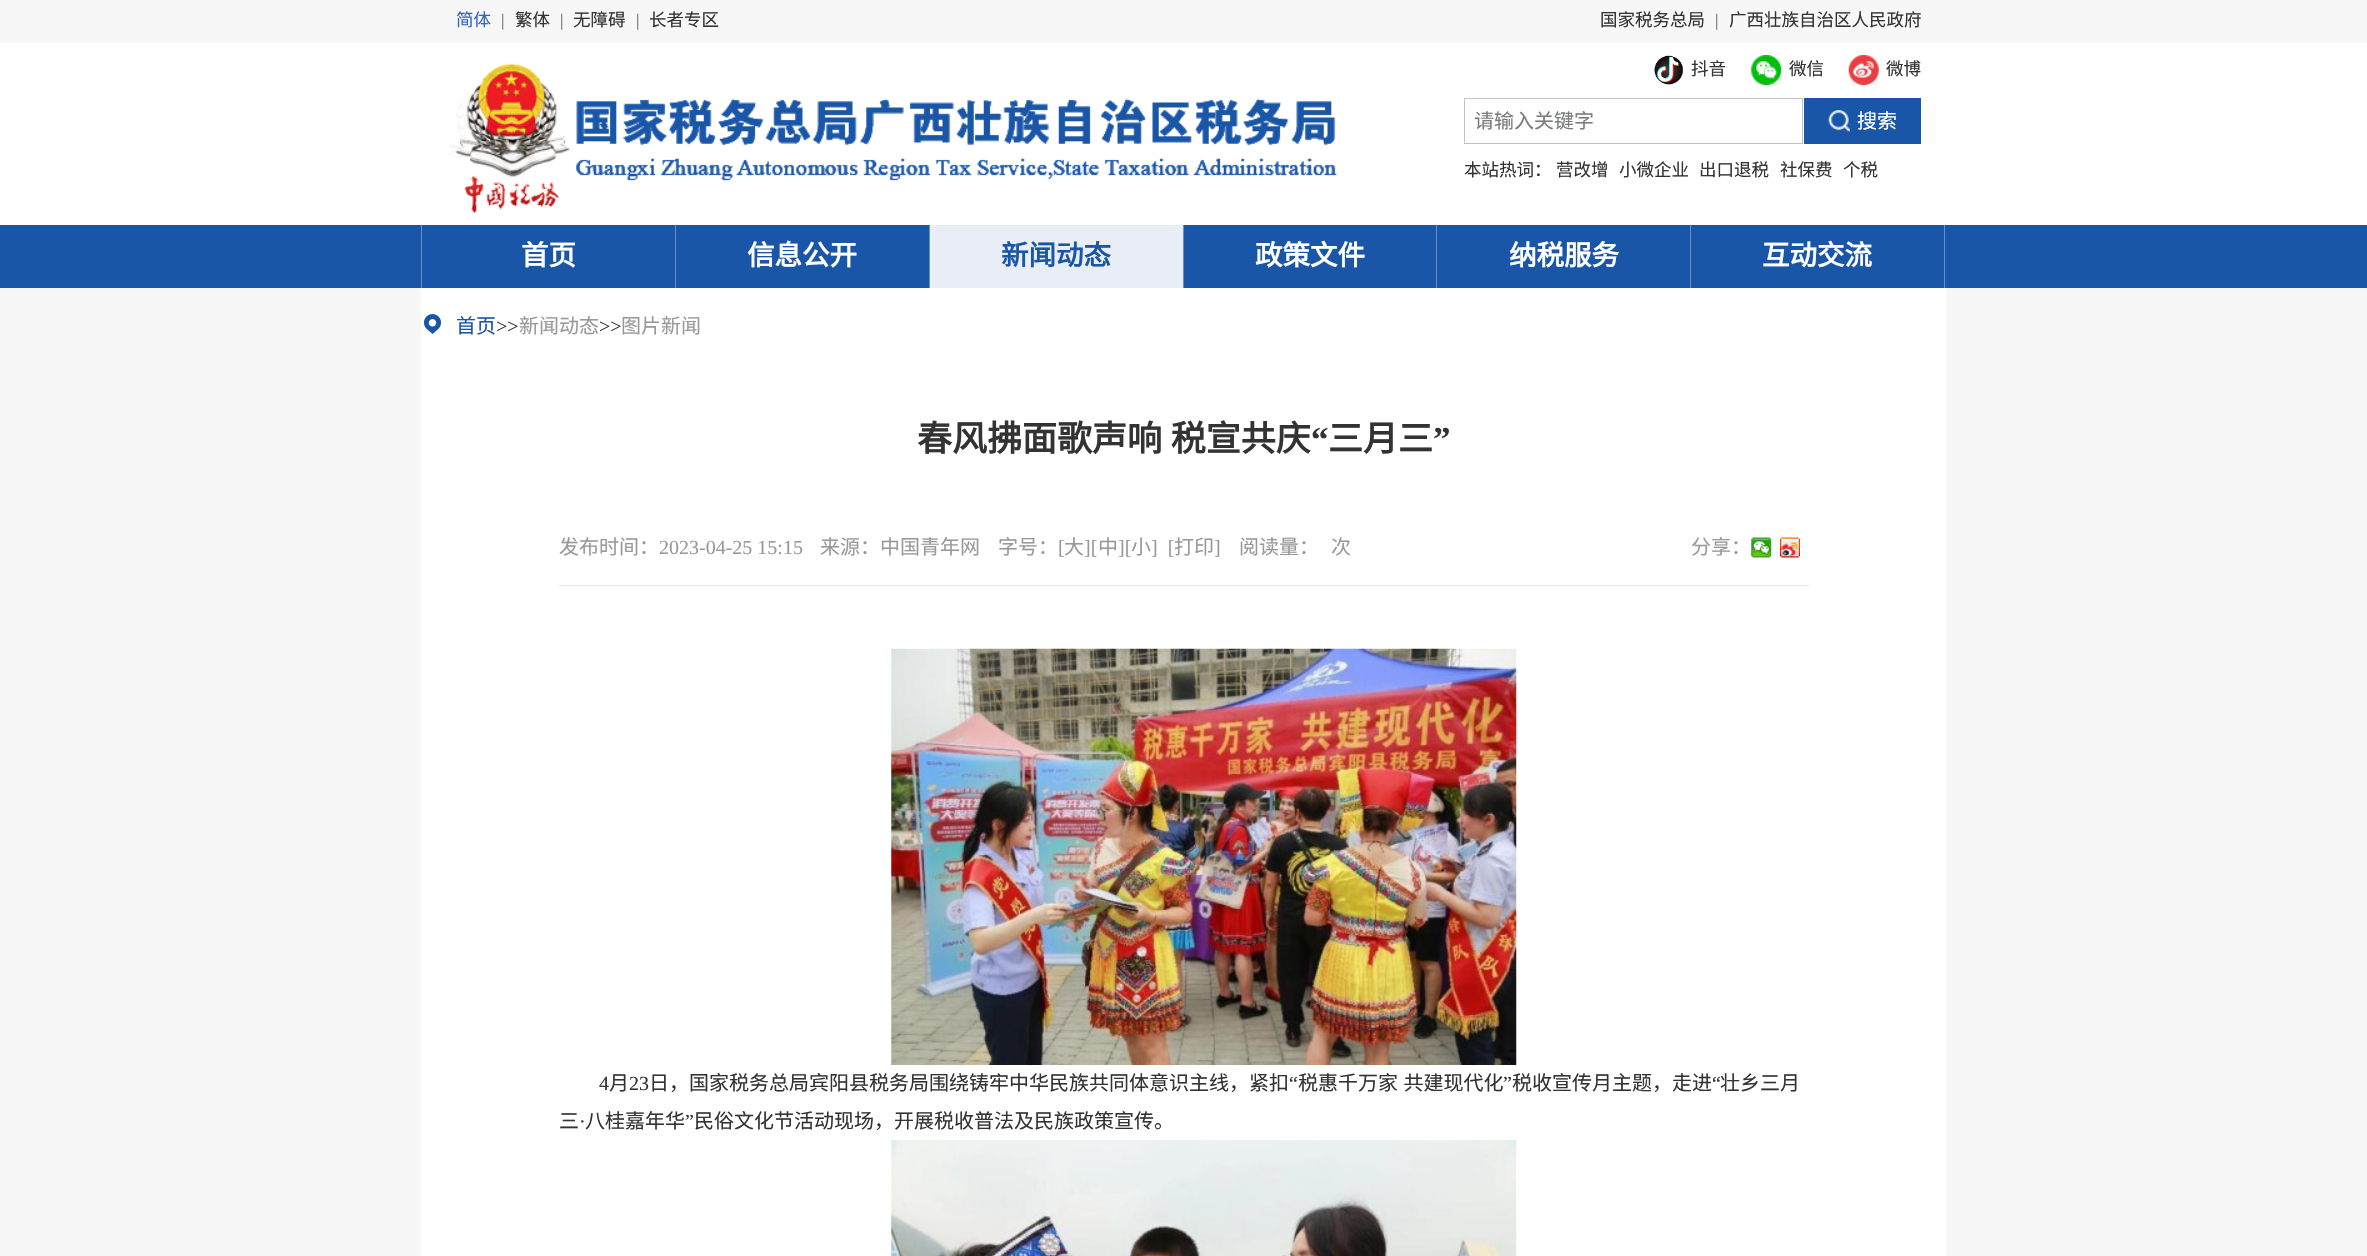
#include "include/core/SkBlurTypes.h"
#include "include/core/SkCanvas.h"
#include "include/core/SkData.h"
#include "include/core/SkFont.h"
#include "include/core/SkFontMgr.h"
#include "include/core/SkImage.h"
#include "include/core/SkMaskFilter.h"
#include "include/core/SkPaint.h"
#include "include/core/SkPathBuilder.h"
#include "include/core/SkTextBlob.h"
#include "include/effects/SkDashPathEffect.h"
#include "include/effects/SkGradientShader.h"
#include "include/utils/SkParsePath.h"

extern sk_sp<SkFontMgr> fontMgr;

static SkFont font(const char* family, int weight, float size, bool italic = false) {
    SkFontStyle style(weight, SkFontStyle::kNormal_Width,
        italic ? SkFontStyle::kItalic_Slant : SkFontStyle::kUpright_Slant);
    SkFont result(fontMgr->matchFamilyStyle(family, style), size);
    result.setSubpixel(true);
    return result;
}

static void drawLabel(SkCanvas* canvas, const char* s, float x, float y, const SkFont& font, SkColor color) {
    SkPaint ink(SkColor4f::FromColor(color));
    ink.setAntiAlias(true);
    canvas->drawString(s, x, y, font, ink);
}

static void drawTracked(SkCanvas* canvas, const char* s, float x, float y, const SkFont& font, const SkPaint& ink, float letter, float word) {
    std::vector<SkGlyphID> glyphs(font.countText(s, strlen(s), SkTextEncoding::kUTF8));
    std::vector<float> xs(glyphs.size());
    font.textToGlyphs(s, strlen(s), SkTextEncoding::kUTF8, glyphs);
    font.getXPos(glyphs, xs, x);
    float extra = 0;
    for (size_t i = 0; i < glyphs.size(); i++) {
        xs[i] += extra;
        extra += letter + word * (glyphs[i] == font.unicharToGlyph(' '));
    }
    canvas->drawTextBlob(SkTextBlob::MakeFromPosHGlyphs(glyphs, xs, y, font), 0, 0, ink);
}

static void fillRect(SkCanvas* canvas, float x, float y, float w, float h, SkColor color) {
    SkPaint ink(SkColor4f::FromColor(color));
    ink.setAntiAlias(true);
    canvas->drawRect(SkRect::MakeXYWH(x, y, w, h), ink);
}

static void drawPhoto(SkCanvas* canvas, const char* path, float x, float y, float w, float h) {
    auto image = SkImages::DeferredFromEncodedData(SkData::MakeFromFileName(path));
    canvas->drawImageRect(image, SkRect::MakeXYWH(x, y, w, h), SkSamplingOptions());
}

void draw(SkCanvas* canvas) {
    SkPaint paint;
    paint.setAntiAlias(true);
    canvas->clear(0xFFF7F7F7);
    fillRect(canvas, 0, 43, 2367, 182, 0xFFFFFFFF);
    SkFont font1 = font("Noto Sans CJK SC", 400, 17.5f);
    drawLabel(canvas, "简体", 456, 26, font1, 0xFF3366BB);
    SkFont font2 = font("Liberation Serif", 400, 17.5f);
    drawLabel(canvas, "|", 501, 26, font2, 0xFF666666);
    drawLabel(canvas, "繁体", 515, 26, font1, 0xFF333333);
    drawLabel(canvas, "|", 560, 26, font2, 0xFF666666);
    drawLabel(canvas, "无障碍", 573, 26, font1, 0xFF333333);
    drawLabel(canvas, "|", 636, 26, font2, 0xFF666666);
    drawLabel(canvas, "长者专区", 649, 26, font1, 0xFF333333);
    drawLabel(canvas, "国家税务总局", 1600, 26, font1, 0xFF333333);
    drawLabel(canvas, "|", 1715, 26, font2, 0xFF666666);
    drawLabel(canvas, "广西壮族自治区人民政府", 1729, 26, font1, 0xFF333333);
    drawPhoto(canvas, "assets/img1.png", 447, 63, 890, 150);
    drawPhoto(canvas, "assets/img2.png", 1654, 55, 29, 30);
    drawLabel(canvas, "抖音", 1691, 75, font1, 0xFF333333);
    drawPhoto(canvas, "assets/img3.png", 1751, 55, 31, 30);
    drawLabel(canvas, "微信", 1789, 75, font1, 0xFF333333);
    drawPhoto(canvas, "assets/img4.png", 1848, 55, 31, 30);
    drawLabel(canvas, "微博", 1886, 75, font1, 0xFF333333);
    paint.setStroke(true);
    paint.setStrokeWidth(1);
    paint.setColor(0xFFC2C2C2);
    canvas->drawRect(SkRect::MakeXYWH(1464.5f, 98.5f, 338, 45), paint);
    SkFont font3 = font("Noto Sans CJK SC", 400, 20);
    drawLabel(canvas, "请输入关键字", 1474, 128, font3, 0xFF7B7C7D);
    fillRect(canvas, 1804, 98, 117, 46, 0xFF1A56A8);
    drawPhoto(canvas, "assets/img5.png", 1828, 110, 22, 22);
    drawLabel(canvas, "搜索", 1857, 128, font3, 0xFFFFFFFF);
    drawLabel(canvas, "本站热词：", 1464, 176, font1, 0xFF333333);
    drawLabel(canvas, "营改增", 1556, 176, font1, 0xFF333333);
    drawLabel(canvas, "小微企业", 1619, 176, font1, 0xFF333333);
    drawLabel(canvas, "出口退税", 1699, 176, font1, 0xFF333333);
    drawLabel(canvas, "社保费", 1780, 176, font1, 0xFF333333);
    drawLabel(canvas, "个税", 1843, 176, font1, 0xFF333333);
    fillRect(canvas, 0, 225, 2367, 63, 0xFF1A56A8);
    fillRect(canvas, 421, 225, 1, 63, 0xFF6A91C6);
    SkFont font4 = font("Noto Sans CJK SC", 700, 27.5f);
    drawLabel(canvas, "首页", 521, 265, font4, 0xFFFFFFFF);
    fillRect(canvas, 675, 225, 1, 63, 0xFF6A91C6);
    drawLabel(canvas, "信息公开", 747, 265, font4, 0xFFFFFFFF);
    fillRect(canvas, 929, 225, 1, 63, 0xFF6A91C6);
    fillRect(canvas, 930, 225, 253, 63, 0xFFE9EEF6);
    drawLabel(canvas, "新闻动态", 1001, 265, font4, 0xFF1A56A8);
    fillRect(canvas, 1183, 225, 1, 63, 0xFF6A91C6);
    drawLabel(canvas, "政策文件", 1255, 265, font4, 0xFFFFFFFF);
    fillRect(canvas, 1436, 225, 1, 63, 0xFF6A91C6);
    drawLabel(canvas, "纳税服务", 1509, 265, font4, 0xFFFFFFFF);
    fillRect(canvas, 1944, 225, 1, 63, 0xFF6A91C6);
    fillRect(canvas, 1690, 225, 1, 63, 0xFF6A91C6);
    drawLabel(canvas, "互动交流", 1762, 265, font4, 0xFFFFFFFF);
    fillRect(canvas, 421, 288, 1525, 968, 0xFFFFFFFF);
    drawPhoto(canvas, "assets/img6.png", 423, 314, 19, 20);
    drawLabel(canvas, "首页", 456, 333, font3, 0xFF1A56A8);
    SkFont font5 = font("Liberation Serif", 400, 20);
    drawLabel(canvas, ">>", 496, 333, font5, 0xFF333333);
    drawLabel(canvas, "新闻动态", 519, 333, font3, 0xFF999999);
    drawLabel(canvas, ">>", 599, 333, font5, 0xFF333333);
    drawLabel(canvas, "图片新闻", 621, 333, font3, 0xFF999999);
    SkFont font6 = font("Noto Sans CJK SC", 700, 35);
    paint.setStroke(false);
    paint.setColor(0xFF333333);
    drawTracked(canvas, "春风拂面歌声响 税宣共庆", 917, 451, font6, paint, 0, 1);
    SkFont font7 = font("Liberation Serif", 700, 35);
    drawLabel(canvas, "“", 1311, 451, font7, 0xFF333333);
    drawLabel(canvas, "三月三", 1328, 451, font6, 0xFF333333);
    drawLabel(canvas, "”", 1433, 451, font7, 0xFF333333);
    fillRect(canvas, 559, 585, 1250, 1, 0xFFE6E6E6);
    drawLabel(canvas, "发布时间：", 559, 554, font3, 0xFF999999);
    drawLabel(canvas, "2023-04-25 15:15", 659, 554, font5, 0xFF999999);
    drawLabel(canvas, "来源：中国青年网", 820, 554, font3, 0xFF999999);
    drawLabel(canvas, "字号：", 998, 554, font3, 0xFF999999);
    drawLabel(canvas, "[", 1058, 554, font5, 0xFF999999);
    drawLabel(canvas, "大", 1064, 554, font3, 0xFF999999);
    drawLabel(canvas, "][", 1084, 554, font5, 0xFF999999);
    drawLabel(canvas, "中", 1098, 554, font3, 0xFF999999);
    drawLabel(canvas, "][", 1118, 554, font5, 0xFF999999);
    drawLabel(canvas, "小", 1131, 554, font3, 0xFF999999);
    drawLabel(canvas, "]  [", 1151, 554, font5, 0xFF999999);
    drawLabel(canvas, "打印", 1174, 554, font3, 0xFF999999);
    drawLabel(canvas, "]", 1214, 554, font5, 0xFF999999);
    drawLabel(canvas, "阅读量：", 1239, 554, font3, 0xFF999999);
    drawLabel(canvas, "次", 1331, 554, font3, 0xFF999999);
    drawLabel(canvas, "分享：", 1691, 554, font3, 0xFF999999);
    drawPhoto(canvas, "assets/img7.png", 1751, 537, 21, 21);
    drawPhoto(canvas, "assets/img8.png", 1780, 537, 20, 21);
    drawPhoto(canvas, "assets/img9.png", 891, 648, 626, 417);
    drawLabel(canvas, "4", 599, 1090, font5, 0xFF333333);
    drawLabel(canvas, "月", 609, 1090, font3, 0xFF333333);
    drawLabel(canvas, "23", 629, 1090, font5, 0xFF333333);
    drawLabel(canvas, "日，国家税务总局宾阳县税务局围绕铸牢中华民族共同体意识主线，紧扣", 649, 1090, font3, 0xFF333333);
    drawLabel(canvas, "“", 1289, 1090, font5, 0xFF333333);
    drawTracked(canvas, "税惠千万家 共建现代化", 1298, 1090, font3, paint, 0, 1);
    drawLabel(canvas, "”", 1503, 1090, font5, 0xFF333333);
    drawLabel(canvas, "税收宣传月主题，走进", 1512, 1090, font3, 0xFF333333);
    drawLabel(canvas, "“", 1712, 1090, font5, 0xFF333333);
    drawLabel(canvas, "壮乡三月", 1720, 1090, font3, 0xFF333333);
    drawLabel(canvas, "三", 559, 1128, font3, 0xFF333333);
    drawLabel(canvas, "八桂嘉年华", 585, 1128, font3, 0xFF333333);
    drawLabel(canvas, "”", 685, 1128, font5, 0xFF333333);
    drawLabel(canvas, "民俗文化节活动现场，开展税收普法及民族政策宣传。", 694, 1128, font3, 0xFF333333);
    drawLabel(canvas, "·", 579, 1128, font5, 0xFF333333);
    drawPhoto(canvas, "assets/img10.png", 891, 1140, 626, 116);
}
